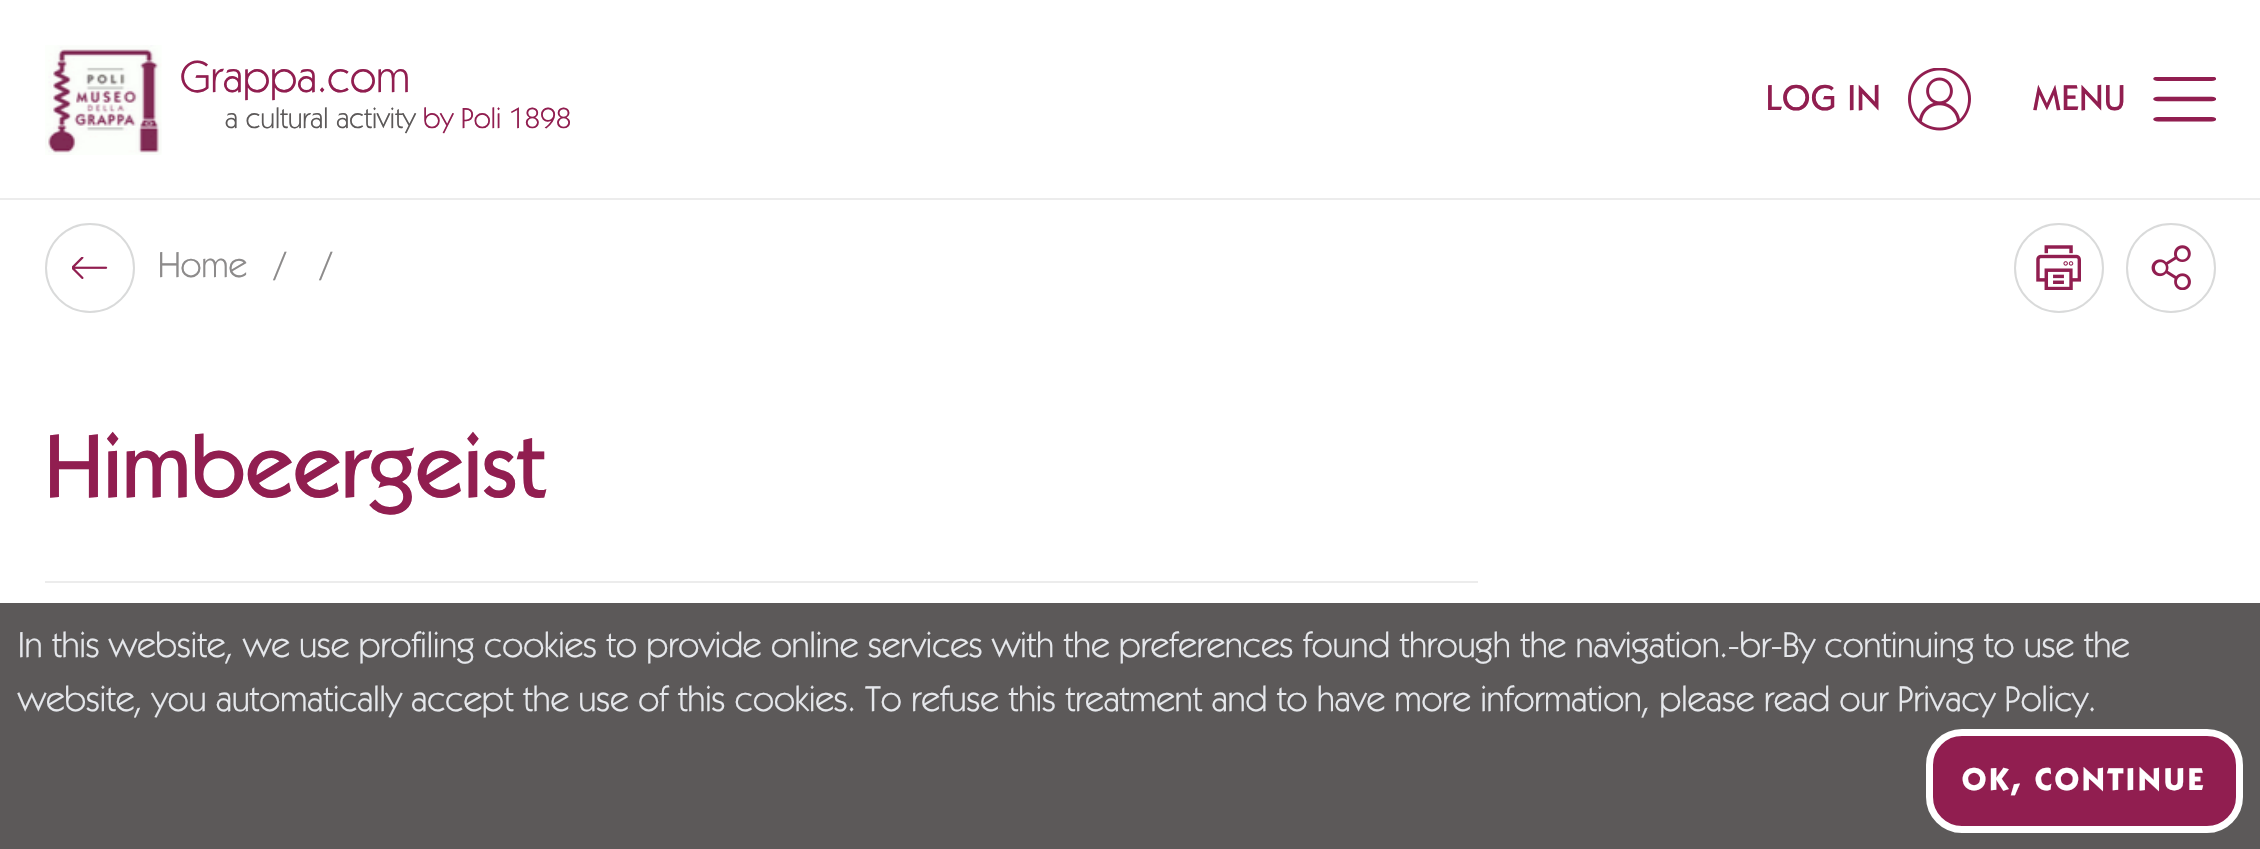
#include "include/core/SkBlurTypes.h"
#include "include/core/SkCanvas.h"
#include "include/core/SkData.h"
#include "include/core/SkFont.h"
#include "include/core/SkFontMgr.h"
#include "include/core/SkImage.h"
#include "include/core/SkMaskFilter.h"
#include "include/core/SkPaint.h"
#include "include/core/SkPathBuilder.h"
#include "include/core/SkTextBlob.h"
#include "include/effects/SkDashPathEffect.h"
#include "include/effects/SkGradientShader.h"
#include "include/utils/SkParsePath.h"

extern sk_sp<SkFontMgr> fontMgr;

static SkFont font(const char* family, int weight, float size, bool italic = false) {
    SkFontStyle style(weight, SkFontStyle::kNormal_Width,
        italic ? SkFontStyle::kItalic_Slant : SkFontStyle::kUpright_Slant);
    SkFont result(fontMgr->matchFamilyStyle(family, style), size);
    result.setSubpixel(true);
    return result;
}

static void drawLabel(SkCanvas* canvas, const char* s, float x, float y, const SkFont& font, SkColor color) {
    SkPaint ink(SkColor4f::FromColor(color));
    ink.setAntiAlias(true);
    canvas->drawString(s, x, y, font, ink);
}

static void drawTracked(SkCanvas* canvas, const char* s, float x, float y, const SkFont& font, const SkPaint& ink, float letter, float word) {
    std::vector<SkGlyphID> glyphs(font.countText(s, strlen(s), SkTextEncoding::kUTF8));
    std::vector<float> xs(glyphs.size());
    font.textToGlyphs(s, strlen(s), SkTextEncoding::kUTF8, glyphs);
    font.getXPos(glyphs, xs, x);
    float extra = 0;
    for (size_t i = 0; i < glyphs.size(); i++) {
        xs[i] += extra;
        extra += letter + word * (glyphs[i] == font.unicharToGlyph(' '));
    }
    canvas->drawTextBlob(SkTextBlob::MakeFromPosHGlyphs(glyphs, xs, y, font), 0, 0, ink);
}

static void fillRect(SkCanvas* canvas, float x, float y, float w, float h, SkColor color) {
    SkPaint ink(SkColor4f::FromColor(color));
    ink.setAntiAlias(true);
    canvas->drawRect(SkRect::MakeXYWH(x, y, w, h), ink);
}

static void drawPhoto(SkCanvas* canvas, const char* path, float x, float y, float w, float h) {
    auto image = SkImages::DeferredFromEncodedData(SkData::MakeFromFileName(path));
    canvas->drawImageRect(image, SkRect::MakeXYWH(x, y, w, h), SkSamplingOptions());
}

void draw(SkCanvas* canvas) {
    SkPaint paint;
    paint.setAntiAlias(true);
    canvas->clear(0xFFFFFFFF);
    fillRect(canvas, 0, 198, 2260, 2, 0xFFECECEC);
    drawPhoto(canvas, "assets/img1.png", 45, 45, 117, 110);
    SkFont font1 = font("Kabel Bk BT", 400, 45);
    drawLabel(canvas, "Grappa.com", 180, 92, font1, 0xFF911E50);
    SkFont font2 = font("Kabel Bk BT", 400, 29.25f);
    drawLabel(canvas, "a cultural activity", 225, 128, font2, 0xFF5C5959);
    drawLabel(canvas, "by Poli 1898", 423, 128, font2, 0xFF911E50);
    SkFont font3 = font("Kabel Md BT", 500, 36);
    paint.setColor(0xFF911E50);
    drawTracked(canvas, "LOG IN", 1766, 110, font3, paint, 1, 0);
    drawPhoto(canvas, "assets/img2.png", 1908, 68, 63, 63);
    drawTracked(canvas, "MENU", 2033, 110, font3, paint, 1, 0);
    drawPhoto(canvas, "assets/img3.png", 2153, 77, 63, 45);
    paint.setStroke(true);
    paint.setStrokeWidth(2);
    paint.setColor(0xFFD9DADA);
    canvas->drawCircle(90, 268, 44, paint);
    drawPhoto(canvas, "assets/img4.png", 72, 257, 36, 22);
    SkFont font4 = font("Kabel Bk BT", 400, 36);
    drawLabel(canvas, "Home", 158, 277, font4, 0xFF8D8B8B);
    drawLabel(canvas, "/", 274, 277, font4, 0xFF8D8B8B);
    drawLabel(canvas, "/", 320, 277, font4, 0xFF8D8B8B);
    canvas->drawCircle(2059, 268, 44, paint);
    drawPhoto(canvas, "assets/img5.png", 2036, 245, 45, 45);
    canvas->drawCircle(2171, 268, 44, paint);
    drawPhoto(canvas, "assets/img6.png", 2151, 245, 40, 45);
    SkFont font5 = font("Kabel Md BT", 500, 90);
    drawLabel(canvas, "Himbeergeist", 45, 497, font5, 0xFF911E50);
    fillRect(canvas, 45, 581, 1433, 2, 0xFFECECEC);
    fillRect(canvas, 0, 603, 2260, 246, 0xFF5C5959);
    drawLabel(canvas, "In this website, we use profiling cookies to provide online services with the preferences found through the navigation.-br-By continuing to use the", 18, 657, font4, 0xFFE5E7EB);
    drawLabel(canvas, "website, you automatically accept the use of this cookies. To refuse this treatment and to have more information, please read our Privacy Policy.", 18, 711, font4, 0xFFE5E7EB);
    paint.setStroke(false);
    paint.setColor(0xFF911E50);
    canvas->drawRoundRect(SkRect::MakeXYWH(1929.5f, 732.5f, 310, 97), 32.5f, 32.5f, paint);
    paint.setStroke(true);
    paint.setStrokeWidth(7);
    paint.setColor(0xFFFFFFFF);
    canvas->drawRoundRect(SkRect::MakeXYWH(1929.5f, 732.5f, 310, 97), 32.5f, 32.5f, paint);
    SkFont font6 = font("Kabel Md BT", 700, 31.5f);
    paint.setStroke(false);
    drawTracked(canvas, "OK, CONTINUE", 1962, 790, font6, paint, 3.1f, 0);
}
